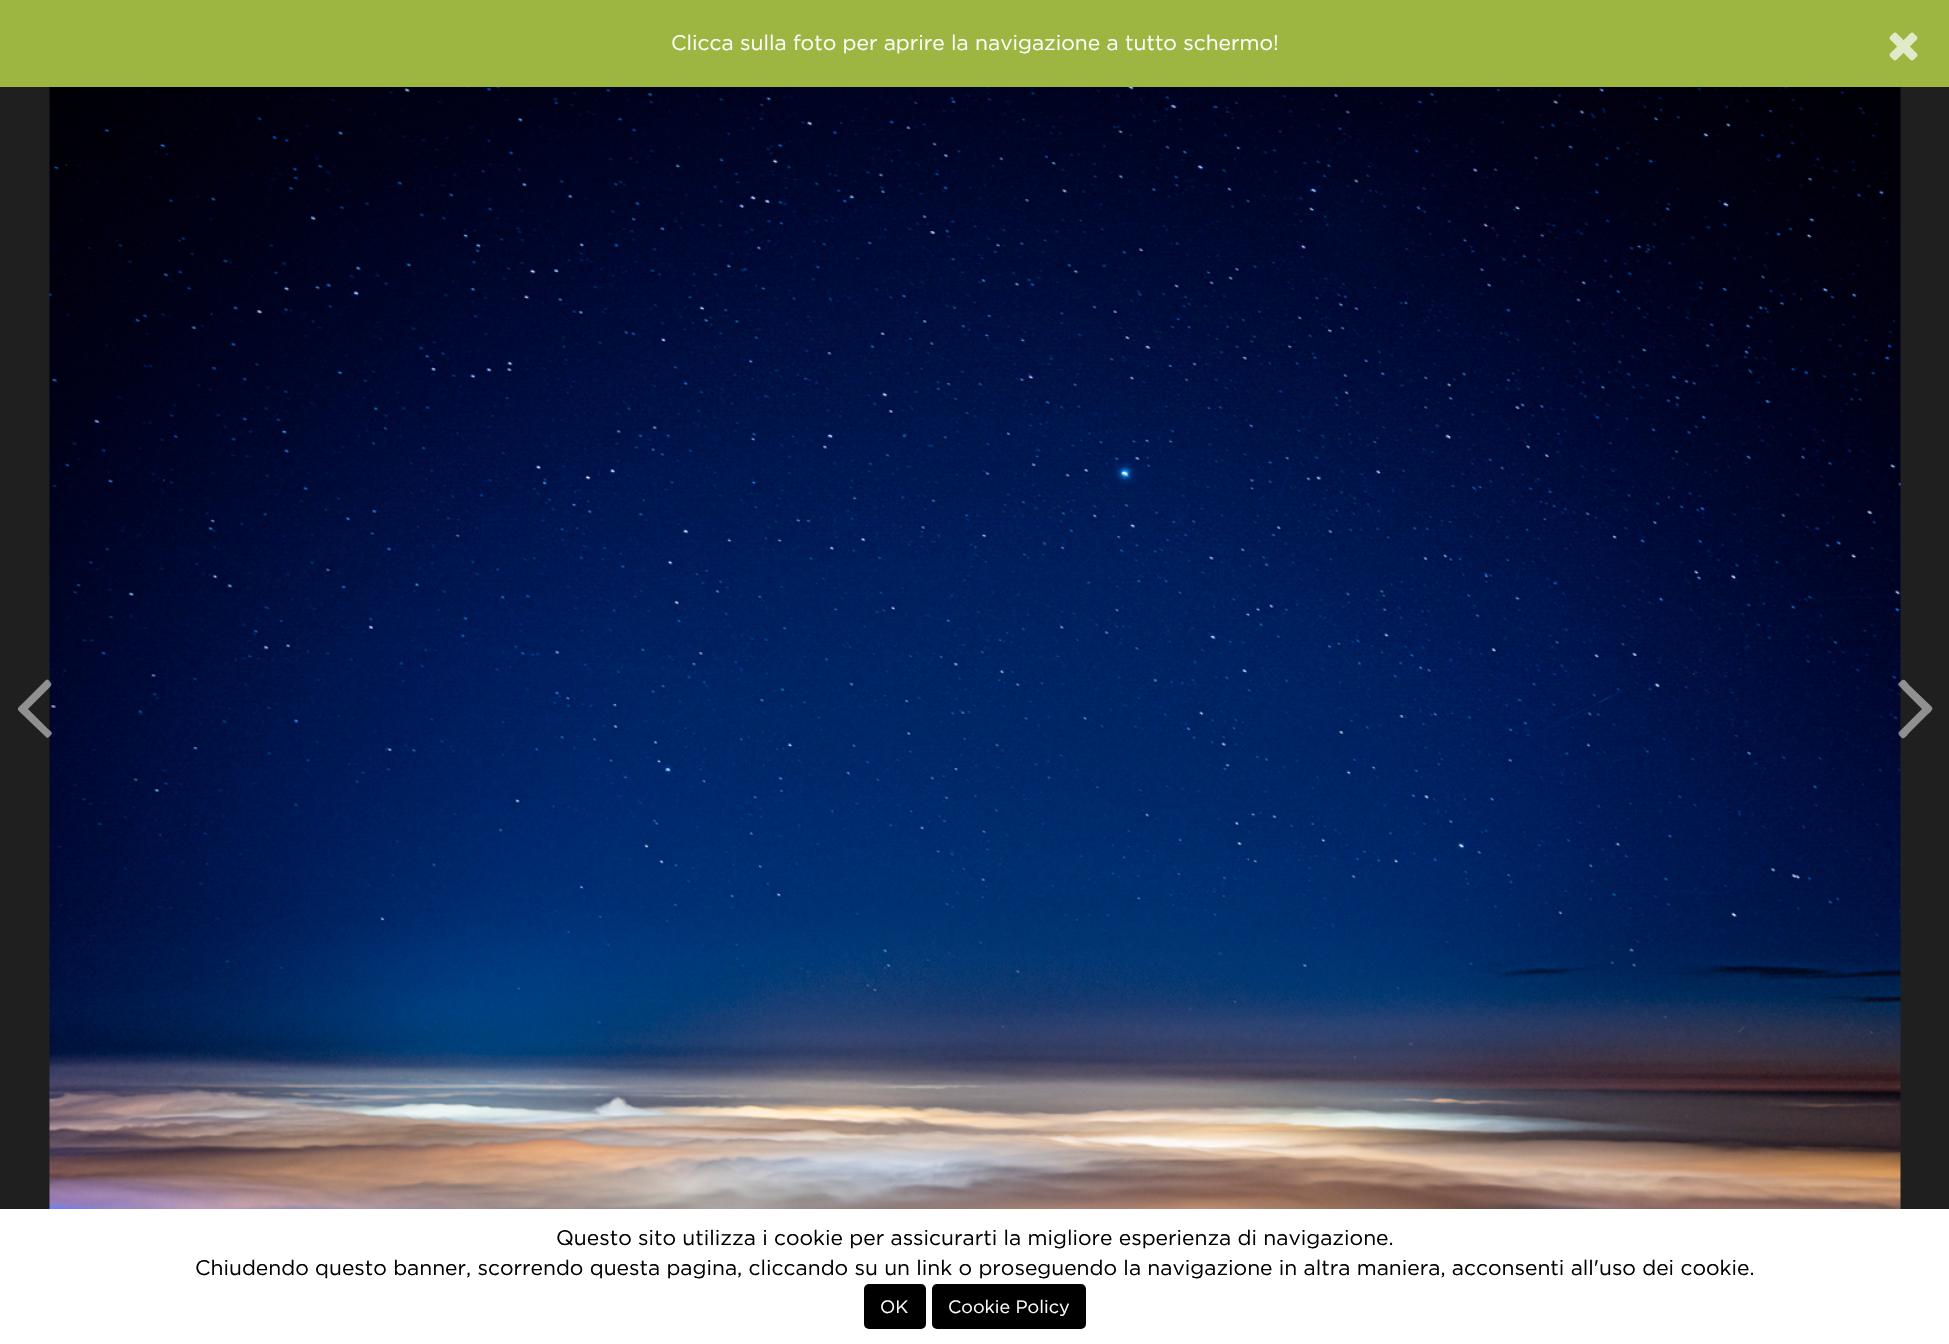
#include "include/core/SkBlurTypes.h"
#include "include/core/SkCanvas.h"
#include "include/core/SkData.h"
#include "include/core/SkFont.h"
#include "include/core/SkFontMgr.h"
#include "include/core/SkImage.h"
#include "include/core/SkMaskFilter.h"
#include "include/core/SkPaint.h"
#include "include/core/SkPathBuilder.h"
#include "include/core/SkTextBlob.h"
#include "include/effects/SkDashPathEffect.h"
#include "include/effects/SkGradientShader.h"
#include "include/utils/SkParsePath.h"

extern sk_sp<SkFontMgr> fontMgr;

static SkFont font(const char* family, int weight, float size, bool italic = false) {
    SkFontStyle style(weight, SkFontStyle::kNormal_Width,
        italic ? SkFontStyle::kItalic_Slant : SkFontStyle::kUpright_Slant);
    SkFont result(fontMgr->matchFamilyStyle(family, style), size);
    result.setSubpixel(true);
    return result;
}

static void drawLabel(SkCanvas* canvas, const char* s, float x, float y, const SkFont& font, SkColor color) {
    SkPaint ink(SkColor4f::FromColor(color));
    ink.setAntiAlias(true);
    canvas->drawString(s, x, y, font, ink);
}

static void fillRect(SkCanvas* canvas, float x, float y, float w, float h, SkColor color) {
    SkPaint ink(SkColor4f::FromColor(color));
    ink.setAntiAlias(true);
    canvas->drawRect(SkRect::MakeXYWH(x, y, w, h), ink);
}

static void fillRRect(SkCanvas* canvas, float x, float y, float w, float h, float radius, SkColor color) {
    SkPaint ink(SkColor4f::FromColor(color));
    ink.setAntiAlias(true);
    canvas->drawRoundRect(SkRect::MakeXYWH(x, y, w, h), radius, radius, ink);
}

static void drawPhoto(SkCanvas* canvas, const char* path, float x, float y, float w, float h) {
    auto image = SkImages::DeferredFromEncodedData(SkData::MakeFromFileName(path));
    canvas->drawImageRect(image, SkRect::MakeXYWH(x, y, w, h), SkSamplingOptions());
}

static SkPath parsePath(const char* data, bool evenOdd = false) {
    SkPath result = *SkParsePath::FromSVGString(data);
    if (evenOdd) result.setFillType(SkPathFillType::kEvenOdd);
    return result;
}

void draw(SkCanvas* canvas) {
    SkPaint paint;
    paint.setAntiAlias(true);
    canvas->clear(0xFF1F1F1F);
    fillRect(canvas, 0, 0, 1949, 87, 0xFF9CB641);
    SkFont font1 = font("Gotham", 400, 21);
    drawLabel(canvas, "Clicca sulla foto per aprire la navigazione a tutto schermo!", 671, 50, font1, 0xFFFFFFFF);
    drawPhoto(canvas, "assets/img1.png", 1889, 32, 29, 29);
    drawPhoto(canvas, "assets/img2.png", 49, 87, 1852, 1122);
    paint.setColor(0x80FFFFFF);
    canvas->drawPath(parsePath("M51 683C53 685 48 689 47 690L28 709L47 728C51 732 54 732 50 736C49 737 47 739 46 737L23 715C16 708 16 710 23 703L46 680C48 678 50 682 51 683Z"), paint);
    canvas->drawPath(parsePath("M1932 707C1934 710 1928 714 1927 715L1909 733C1909 733 1904 740 1902 738C1901 737 1897 734 1899 732L1922 709L1903 690C1899 685 1896 685 1900 682C1904 678 1905 680 1909 685Z"), paint);
    fillRect(canvas, 0, 1209, 1949, 135, 0xFFFFFFFF);
    drawLabel(canvas, "Questo sito utilizza i cookie per assicurarti la migliore esperienza di navigazione.", 556, 1245, font1, 0xFF000000);
    drawLabel(canvas, "Chiudendo questo banner, scorrendo questa pagina, cliccando su un link o proseguendo la navigazione in altra maniera, acconsenti all'uso dei cookie.", 195, 1275, font1, 0xFF000000);
    fillRRect(canvas, 864, 1284, 62, 45, 5, 0xFF000000);
    SkFont font2 = font("Gotham", 400, 18);
    drawLabel(canvas, "OK", 880, 1313, font2, 0xFFFFFFFF);
    fillRRect(canvas, 932, 1284, 154, 45, 5, 0xFF000000);
    drawLabel(canvas, "Cookie Policy", 948, 1313, font2, 0xFFFFFFFF);
}
